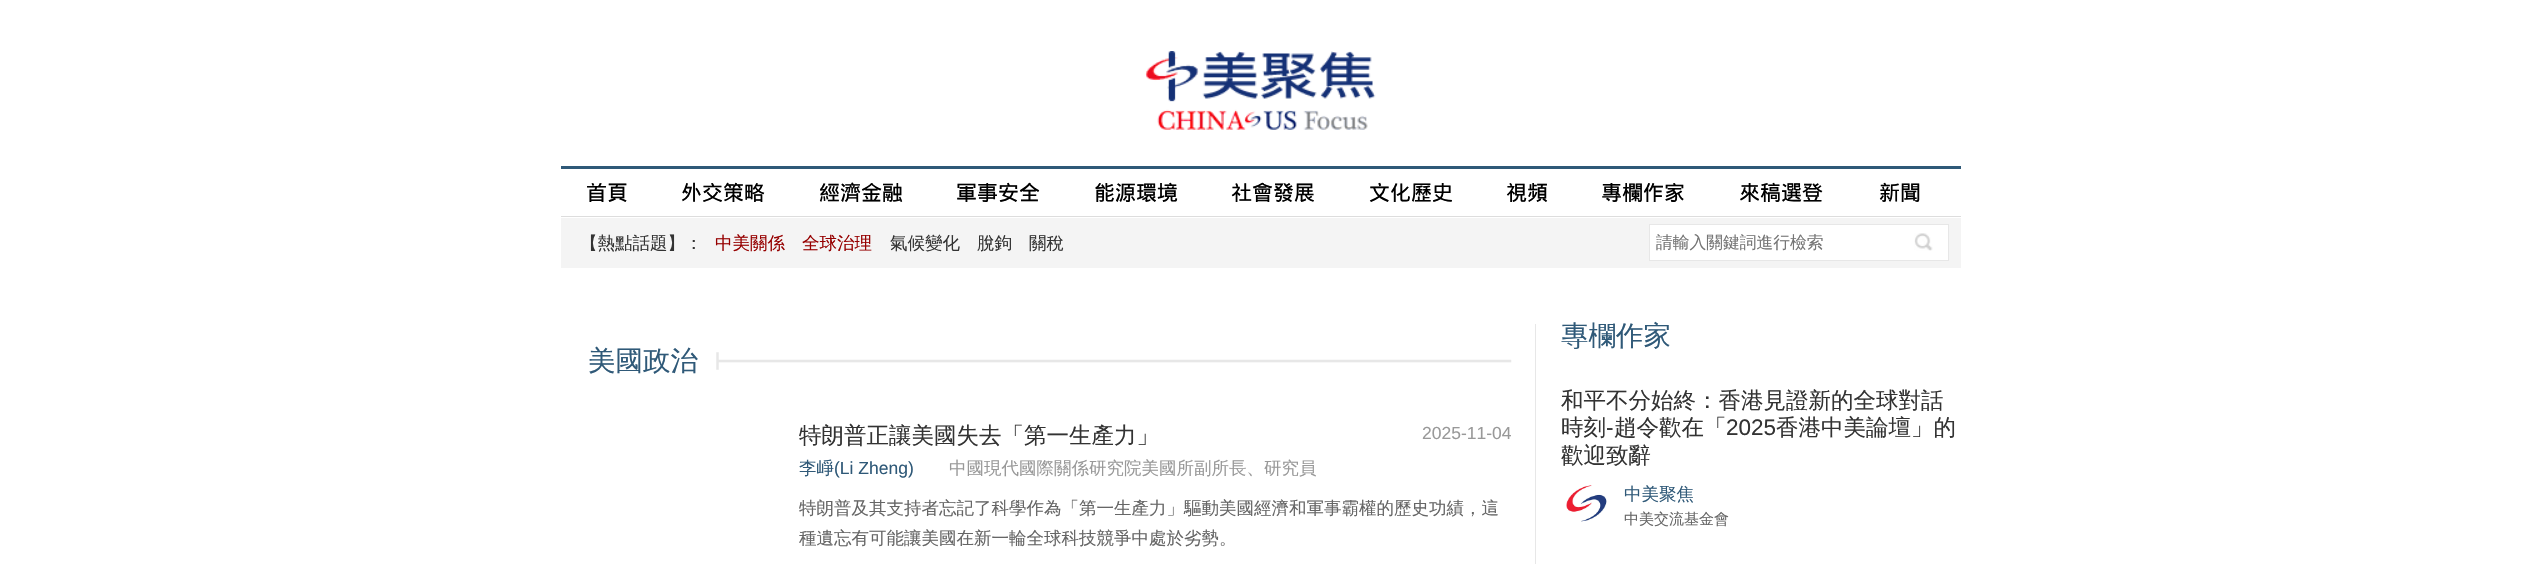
#include "include/core/SkBlurTypes.h"
#include "include/core/SkCanvas.h"
#include "include/core/SkData.h"
#include "include/core/SkFont.h"
#include "include/core/SkFontMgr.h"
#include "include/core/SkImage.h"
#include "include/core/SkMaskFilter.h"
#include "include/core/SkPaint.h"
#include "include/core/SkPathBuilder.h"
#include "include/core/SkTextBlob.h"
#include "include/effects/SkDashPathEffect.h"
#include "include/effects/SkGradientShader.h"
#include "include/utils/SkParsePath.h"

extern sk_sp<SkFontMgr> fontMgr;

static SkFont font(const char* family, int weight, float size, bool italic = false) {
    SkFontStyle style(weight, SkFontStyle::kNormal_Width,
        italic ? SkFontStyle::kItalic_Slant : SkFontStyle::kUpright_Slant);
    SkFont result(fontMgr->matchFamilyStyle(family, style), size);
    result.setSubpixel(true);
    return result;
}

static void drawLabel(SkCanvas* canvas, const char* s, float x, float y, const SkFont& font, SkColor color) {
    SkPaint ink(SkColor4f::FromColor(color));
    ink.setAntiAlias(true);
    canvas->drawString(s, x, y, font, ink);
}

static void fillRect(SkCanvas* canvas, float x, float y, float w, float h, SkColor color) {
    SkPaint ink(SkColor4f::FromColor(color));
    ink.setAntiAlias(true);
    canvas->drawRect(SkRect::MakeXYWH(x, y, w, h), ink);
}

static void drawPhoto(SkCanvas* canvas, const char* path, float x, float y, float w, float h) {
    auto image = SkImages::DeferredFromEncodedData(SkData::MakeFromFileName(path));
    canvas->drawImageRect(image, SkRect::MakeXYWH(x, y, w, h), SkSamplingOptions());
}

void draw(SkCanvas* canvas) {
    SkPaint paint;
    paint.setAntiAlias(true);
    canvas->clear(0xFFFFFFFF);
    drawPhoto(canvas, "assets/img1.png", 1145, 51, 231, 79);
    fillRect(canvas, 561, 166, 1400, 3, 0xFF2F5978);
    fillRect(canvas, 561, 216, 1400, 1, 0xFFDDDDDD);
    SkFont font1 = font("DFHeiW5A", 400, 21);
    drawLabel(canvas, "首頁", 586, 200, font1, 0xFF000000);
    drawLabel(canvas, "外交策略", 681, 200, font1, 0xFF000000);
    drawLabel(canvas, "經濟金融", 819, 200, font1, 0xFF000000);
    drawLabel(canvas, "軍事安全", 956, 200, font1, 0xFF000000);
    drawLabel(canvas, "能源環境", 1094, 200, font1, 0xFF000000);
    drawLabel(canvas, "社會發展", 1231, 200, font1, 0xFF000000);
    drawLabel(canvas, "文化歷史", 1369, 200, font1, 0xFF000000);
    drawLabel(canvas, "視頻", 1506, 200, font1, 0xFF000000);
    drawLabel(canvas, "專欄作家", 1601, 200, font1, 0xFF000000);
    drawLabel(canvas, "來稿選登", 1739, 200, font1, 0xFF000000);
    drawLabel(canvas, "新聞", 1879, 200, font1, 0xFF000000);
    fillRect(canvas, 561, 218, 1400, 50, 0xFFF4F4F4);
    SkFont font2 = font("WenQuanYi Zen Hei", 500, 17.5f);
    drawLabel(canvas, "【熱點話題】：", 580, 249, font2, 0xFF333333);
    drawLabel(canvas, "中美關係", 715, 249, font2, 0xFF960000);
    drawLabel(canvas, "全球治理", 802, 249, font2, 0xFF960000);
    drawLabel(canvas, "氣候變化", 890, 249, font2, 0xFF333333);
    drawLabel(canvas, "脫鉤", 977, 249, font2, 0xFF333333);
    drawLabel(canvas, "關稅", 1029, 249, font2, 0xFF333333);
    paint.setColor(0xFFFFFFFF);
    canvas->drawRect(SkRect::MakeXYWH(1649.5f, 224.5f, 299, 36), paint);
    paint.setStroke(true);
    paint.setStrokeWidth(1);
    paint.setColor(0xFFE7E7E7);
    canvas->drawRect(SkRect::MakeXYWH(1649.5f, 224.5f, 299, 36), paint);
    SkFont font3 = font("WenQuanYi Zen Hei", 500, 16.75f);
    drawLabel(canvas, "請輸入關鍵詞進行檢索", 1656, 248, font3, 0xFF757575);
    drawPhoto(canvas, "assets/img2.png", 1914, 233, 19, 18);
    fillRect(canvas, 1535, 324, 1, 240, 0xFFE7E7E7);
    SkFont font4 = font("WenQuanYi Zen Hei", 500, 27.5f);
    drawLabel(canvas, "美國政治", 588, 370, font4, 0xFF2F5978);
    drawPhoto(canvas, "assets/img3.png", 716, 352, 796, 18);
    SkFont font5 = font("WenQuanYi Zen Hei", 500, 22.5f);
    drawLabel(canvas, "特朗普正讓美國失去「第一生產力」", 799, 443, font5, 0xFF333333);
    SkFont font6 = font("Liberation Sans", 400, 17.5f);
    drawLabel(canvas, "2025-11-04", 1422, 439, font6, 0xFF999999);
    drawLabel(canvas, "李崢", 799, 474, font2, 0xFF2F5978);
    drawLabel(canvas, "(Li Zheng)", 834, 474, font6, 0xFF2F5978);
    drawLabel(canvas, "中國現代國際關係研究院美國所副所長、研究員", 949, 474, font2, 0xFF999999);
    drawLabel(canvas, "特朗普及其支持者忘記了科學作為「第一生產力」驅動美國經濟和軍事霸權的歷史功績，這", 799, 514, font2, 0xFF666666);
    drawLabel(canvas, "種遺忘有可能讓美國在新一輪全球科技競爭中處於劣勢。", 799, 544, font2, 0xFF666666);
    drawLabel(canvas, "專欄作家", 1561, 345, font4, 0xFF2F5978);
    drawLabel(canvas, "和平不分始終：香港見證新的全球對話", 1561, 408, font5, 0xFF333333);
    drawLabel(canvas, "時刻", 1561, 435, font5, 0xFF333333);
    SkFont font7 = font("Liberation Sans", 400, 22.5f);
    drawLabel(canvas, "-", 1606, 435, font7, 0xFF333333);
    drawLabel(canvas, "趙令歡在「", 1614, 435, font5, 0xFF333333);
    drawLabel(canvas, "2025", 1726, 435, font7, 0xFF333333);
    drawLabel(canvas, "香港中美論壇」的", 1776, 435, font5, 0xFF333333);
    drawLabel(canvas, "歡迎致辭", 1561, 463, font5, 0xFF333333);
    drawPhoto(canvas, "assets/img4.png", 1566, 485, 41, 37);
    drawLabel(canvas, "中美聚焦", 1624, 500, font2, 0xFF2F5978);
    SkFont font8 = font("WenQuanYi Zen Hei", 500, 15);
    drawLabel(canvas, "中美交流基金會", 1624, 524, font8, 0xFF666666);
}
